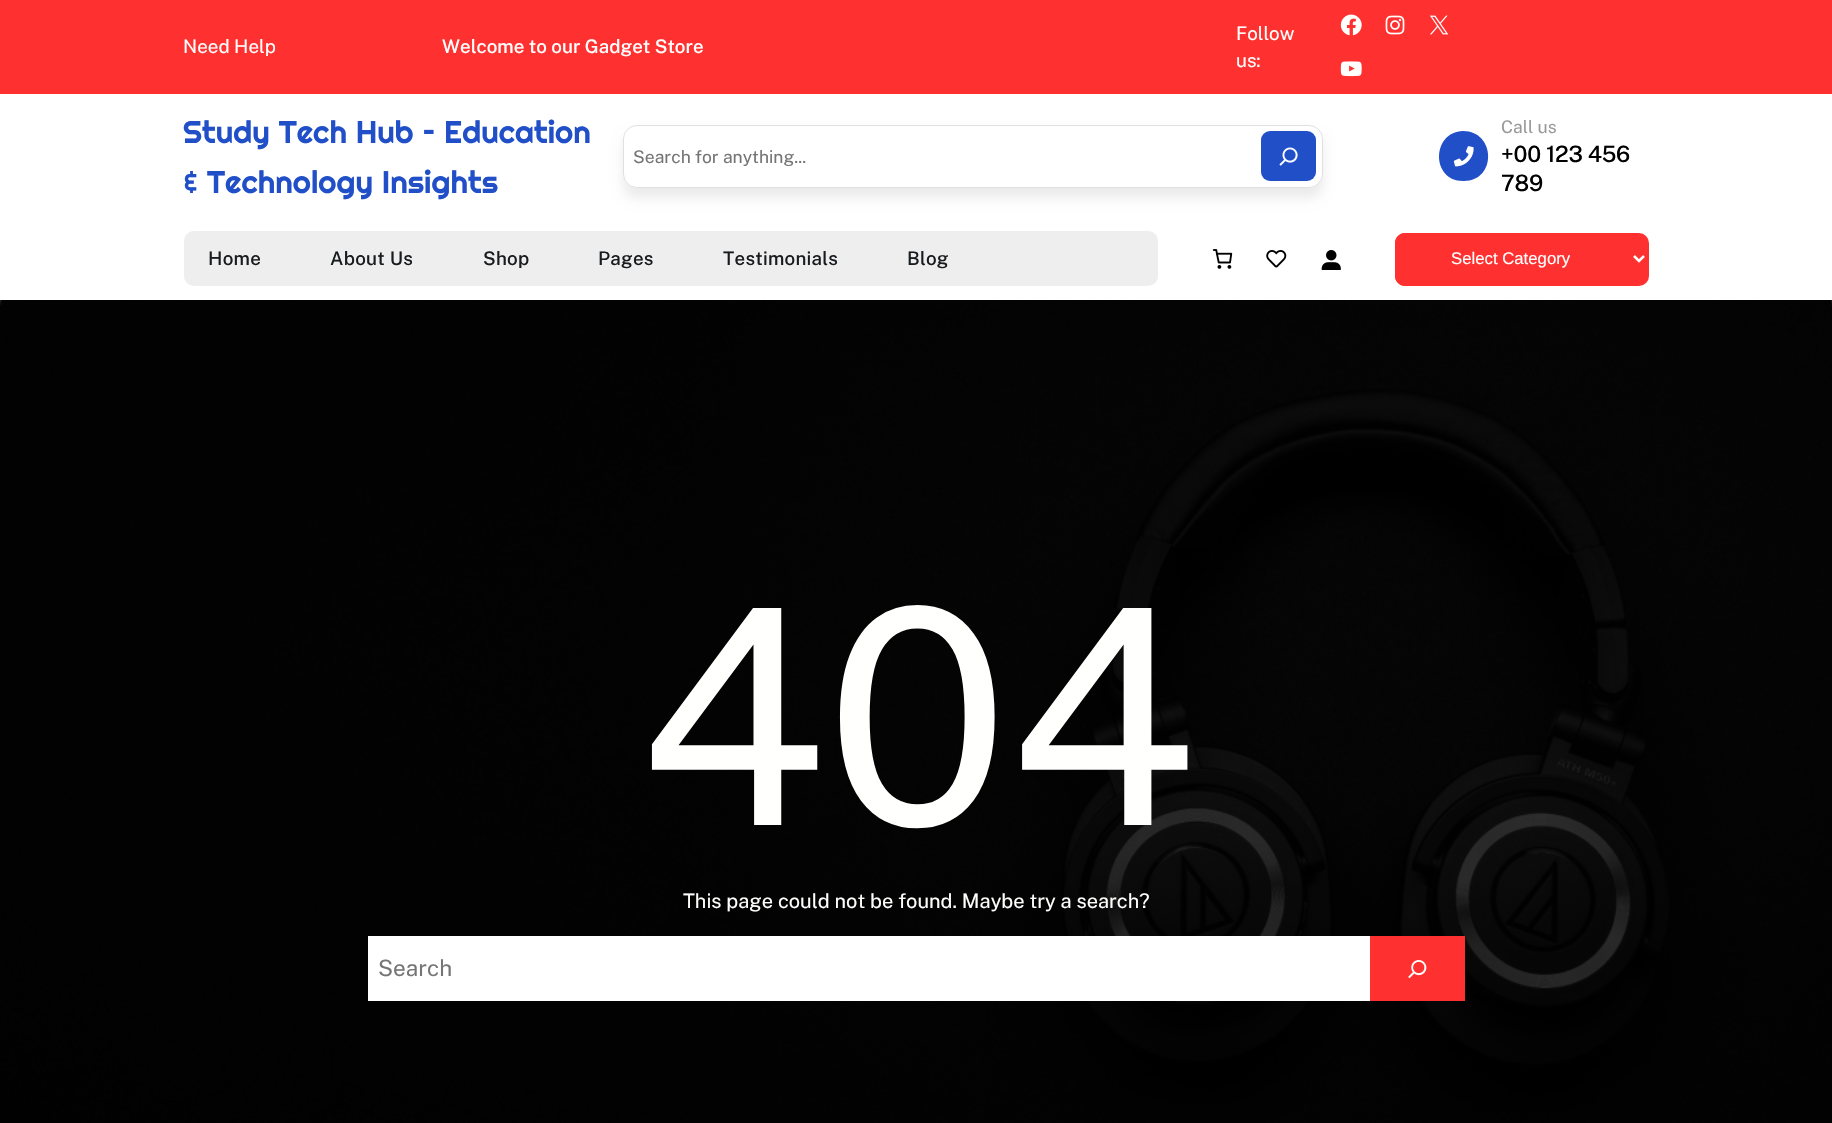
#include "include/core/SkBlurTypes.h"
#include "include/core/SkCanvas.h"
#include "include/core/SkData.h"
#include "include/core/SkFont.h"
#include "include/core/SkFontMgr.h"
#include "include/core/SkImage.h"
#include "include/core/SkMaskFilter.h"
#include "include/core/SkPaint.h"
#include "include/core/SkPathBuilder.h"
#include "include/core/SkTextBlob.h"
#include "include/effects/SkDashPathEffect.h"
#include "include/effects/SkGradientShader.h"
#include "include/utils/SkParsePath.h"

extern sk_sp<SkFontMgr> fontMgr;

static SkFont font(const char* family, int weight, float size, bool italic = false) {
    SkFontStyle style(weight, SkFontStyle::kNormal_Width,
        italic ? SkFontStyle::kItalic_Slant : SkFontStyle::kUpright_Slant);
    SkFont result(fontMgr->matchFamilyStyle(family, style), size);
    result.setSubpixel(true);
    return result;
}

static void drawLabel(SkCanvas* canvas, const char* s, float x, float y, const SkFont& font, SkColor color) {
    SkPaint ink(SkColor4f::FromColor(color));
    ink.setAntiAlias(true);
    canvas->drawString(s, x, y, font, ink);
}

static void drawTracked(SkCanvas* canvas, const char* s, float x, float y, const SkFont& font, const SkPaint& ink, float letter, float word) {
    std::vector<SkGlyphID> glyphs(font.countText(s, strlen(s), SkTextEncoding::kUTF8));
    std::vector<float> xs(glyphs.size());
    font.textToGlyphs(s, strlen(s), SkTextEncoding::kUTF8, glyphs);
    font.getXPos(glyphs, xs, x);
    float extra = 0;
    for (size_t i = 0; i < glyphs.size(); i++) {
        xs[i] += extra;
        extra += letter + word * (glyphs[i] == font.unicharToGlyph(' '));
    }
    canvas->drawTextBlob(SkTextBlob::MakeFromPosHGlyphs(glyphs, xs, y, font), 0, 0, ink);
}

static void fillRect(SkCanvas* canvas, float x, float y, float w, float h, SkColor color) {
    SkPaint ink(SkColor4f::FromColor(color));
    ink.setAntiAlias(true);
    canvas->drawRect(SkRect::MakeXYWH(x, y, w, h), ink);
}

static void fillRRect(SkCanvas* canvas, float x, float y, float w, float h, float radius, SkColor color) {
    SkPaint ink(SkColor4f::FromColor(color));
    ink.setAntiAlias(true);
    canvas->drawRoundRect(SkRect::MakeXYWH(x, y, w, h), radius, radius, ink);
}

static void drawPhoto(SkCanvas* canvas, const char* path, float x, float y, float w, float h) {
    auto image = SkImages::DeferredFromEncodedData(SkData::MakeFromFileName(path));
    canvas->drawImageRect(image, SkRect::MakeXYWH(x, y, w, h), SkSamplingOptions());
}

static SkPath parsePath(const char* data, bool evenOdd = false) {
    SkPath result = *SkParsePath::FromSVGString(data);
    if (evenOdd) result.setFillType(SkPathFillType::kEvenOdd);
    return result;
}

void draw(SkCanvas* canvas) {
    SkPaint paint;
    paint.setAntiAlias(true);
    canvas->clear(0xFFFFFFFF);
    fillRect(canvas, 0, 300, 1832, 6, 0xFF333333);
    fillRect(canvas, 0, 0, 1832, 94, 0xFFFF3030);
    SkFont font1 = font("Public Sans", 400, 18.75f);
    drawLabel(canvas, "Need Help", 183, 53, font1, 0xFFFFFFFE);
    SkFont font2 = font("Public Sans", 500, 18.75f);
    drawLabel(canvas, "Welcome to our Gadget Store", 442, 53, font2, 0xFFFFFFFE);
    drawLabel(canvas, "Follow", 1236, 40, font1, 0xFFFFFFFE);
    drawLabel(canvas, "us:", 1236, 67, font1, 0xFFFFFFFE);
    drawPhoto(canvas, "assets/img1.png", 1340, 14, 22, 22);
    drawPhoto(canvas, "assets/img2.png", 1385, 15, 20, 20);
    drawPhoto(canvas, "assets/img3.png", 1430, 15, 19, 20);
    drawPhoto(canvas, "assets/img4.png", 1340, 61, 22, 16);
    SkFont font3 = font("Righteous", 400, 31.25f);
    drawLabel(canvas, "Study Tech Hub – Education", 183, 143, font3, 0xFF214FC8);
    drawLabel(canvas, "& Technology Insights", 183, 193, font3, 0xFF214FC8);
    canvas->save();
    canvas->clipPath(parsePath("M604 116H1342V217H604ZM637 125H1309C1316.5 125 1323 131.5 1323 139V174C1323 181.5 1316.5 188 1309 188H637C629.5 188 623 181.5 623 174V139C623 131.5 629.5 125 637 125Z", true), true);
    paint.setColor(0x14000000);
    paint.setMaskFilter(SkMaskFilter::MakeBlur(kNormal_SkBlurStyle, 6));
    canvas->drawRoundRect(SkRect::MakeXYWH(623, 135, 700, 63), 14, 14, paint);
    paint.setMaskFilter(nullptr);
    canvas->restore();
    paint.setStroke(true);
    paint.setStrokeWidth(1);
    paint.setColor(0xFFE0E0E0);
    canvas->drawRoundRect(SkRect::MakeXYWH(623.5f, 125.5f, 699, 62), 13.5f, 13.5f, paint);
    SkFont font4 = font("Public Sans", 400, 17.5f);
    drawLabel(canvas, "Search for anything...", 633, 163, font4, 0xFF757575);
    fillRRect(canvas, 1261, 131, 55, 50, 9, 0xFF214FC8);
    drawPhoto(canvas, "assets/img5.png", 1279, 147, 19, 19);
    paint.setStroke(false);
    paint.setColor(0xFF214FC8);
    canvas->drawPath(parsePath("M1463 131C1496 131 1497 181 1464 181C1431 182 1431 132 1463 131Z"), paint);
    drawPhoto(canvas, "assets/img6.png", 1453, 146, 21, 21);
    drawLabel(canvas, "Call us", 1501, 133, font4, 0xFF999999);
    SkFont font5 = font("Public Sans", 500, 22.5f);
    paint.setColor(0xFF000000);
    drawTracked(canvas, "+00 123 456", 1501, 162, font5, paint, -0.25f, 0);
    drawTracked(canvas, "789", 1501, 191, font5, paint, -0.25f, 0);
    fillRRect(canvas, 184, 231, 974, 55, 10, 0xFFEEEEEE);
    paint.setColor(0xFF191C1F);
    drawTracked(canvas, "Home", 208, 265, font2, paint, 0.25f, 0);
    drawTracked(canvas, "About Us", 330, 265, font2, paint, 0.25f, 0);
    drawTracked(canvas, "Shop", 483, 265, font2, paint, 0.25f, 0);
    drawTracked(canvas, "Pages", 598, 265, font2, paint, 0.25f, 0);
    drawTracked(canvas, "Testimonials", 723, 265, font2, paint, 0.25f, 0);
    drawTracked(canvas, "Blog", 907, 265, font2, paint, 0.25f, 0);
    drawPhoto(canvas, "assets/img7.png", 1212, 249, 21, 20);
    drawPhoto(canvas, "assets/img8.png", 1266, 250, 21, 18);
    drawPhoto(canvas, "assets/img9.png", 1321, 250, 20, 20);
    fillRRect(canvas, 1395, 233, 254, 53, 10, 0xFFFF3030);
    paint.setColor(0xFFFF3030);
    canvas->drawPath(parsePath("M1405 233H1440V286H1405C1399.5 286 1395 281.5 1395 276V243C1395 237.5 1399.5 233 1405 233Z"), paint);
    paint.setStroke(true);
    paint.setStrokeWidth(2.5f);
    paint.setColor(0xFFFFFFFE);
    canvas->drawPath(parsePath("M1634 256L1639 261L1644 256"), paint);
    SkFont font6 = font("Liberation Sans", 400, 16.75f);
    drawLabel(canvas, "Select Category", 1451, 264, font6, 0xFFFFFFFE);
    drawPhoto(canvas, "assets/img10.png", 0, 300, 1832, 823);
    SkFont font7 = font("Public Sans", 400, 300);
    paint.setStroke(false);
    drawTracked(canvas, "404", 638, 825, font7, paint, -1, 0);
    SkFont font8 = font("Public Sans", 400, 20);
    drawLabel(canvas, "This page could not be found. Maybe try a search?", 683, 908, font8, 0xFFFFFFFE);
    fillRect(canvas, 368, 936, 1002, 65, 0xFFFFFFFF);
    SkFont font9 = font("Public Sans", 400, 22.5f);
    drawLabel(canvas, "Search", 378, 976, font9, 0xFF757575);
    fillRect(canvas, 1370, 936, 95, 65, 0xFFFF3030);
    drawPhoto(canvas, "assets/img11.png", 1408, 960, 19, 19);
}
